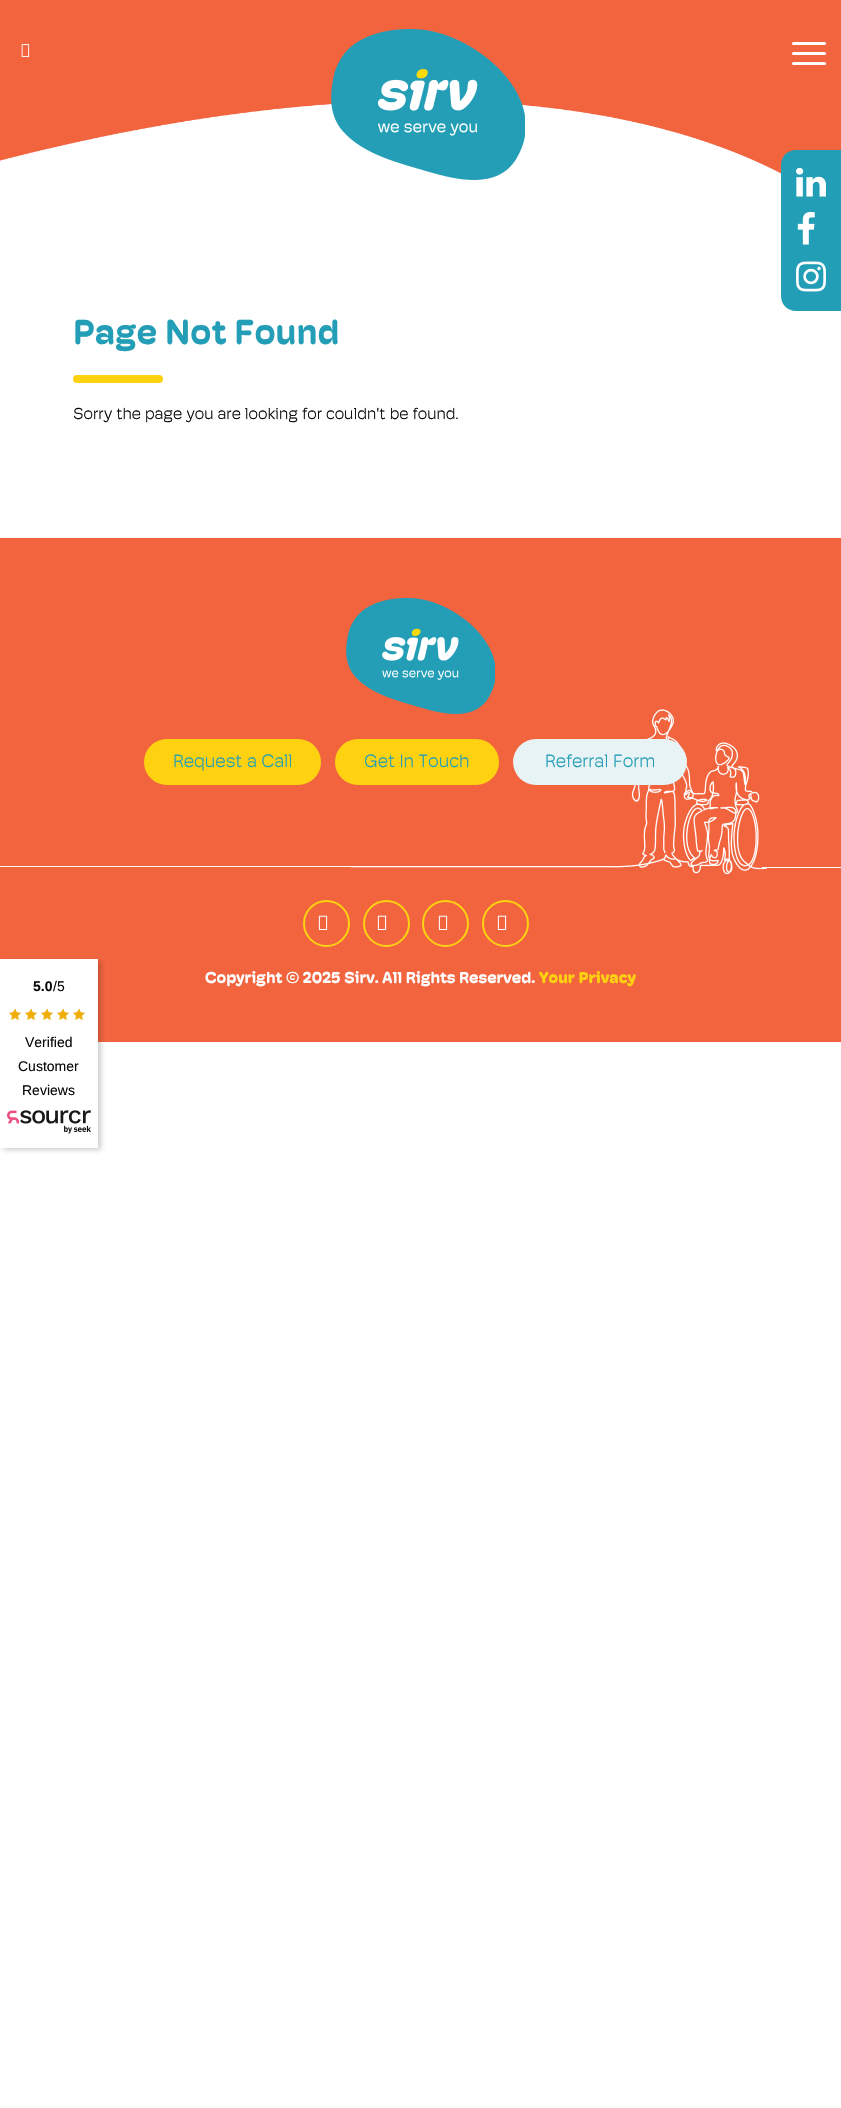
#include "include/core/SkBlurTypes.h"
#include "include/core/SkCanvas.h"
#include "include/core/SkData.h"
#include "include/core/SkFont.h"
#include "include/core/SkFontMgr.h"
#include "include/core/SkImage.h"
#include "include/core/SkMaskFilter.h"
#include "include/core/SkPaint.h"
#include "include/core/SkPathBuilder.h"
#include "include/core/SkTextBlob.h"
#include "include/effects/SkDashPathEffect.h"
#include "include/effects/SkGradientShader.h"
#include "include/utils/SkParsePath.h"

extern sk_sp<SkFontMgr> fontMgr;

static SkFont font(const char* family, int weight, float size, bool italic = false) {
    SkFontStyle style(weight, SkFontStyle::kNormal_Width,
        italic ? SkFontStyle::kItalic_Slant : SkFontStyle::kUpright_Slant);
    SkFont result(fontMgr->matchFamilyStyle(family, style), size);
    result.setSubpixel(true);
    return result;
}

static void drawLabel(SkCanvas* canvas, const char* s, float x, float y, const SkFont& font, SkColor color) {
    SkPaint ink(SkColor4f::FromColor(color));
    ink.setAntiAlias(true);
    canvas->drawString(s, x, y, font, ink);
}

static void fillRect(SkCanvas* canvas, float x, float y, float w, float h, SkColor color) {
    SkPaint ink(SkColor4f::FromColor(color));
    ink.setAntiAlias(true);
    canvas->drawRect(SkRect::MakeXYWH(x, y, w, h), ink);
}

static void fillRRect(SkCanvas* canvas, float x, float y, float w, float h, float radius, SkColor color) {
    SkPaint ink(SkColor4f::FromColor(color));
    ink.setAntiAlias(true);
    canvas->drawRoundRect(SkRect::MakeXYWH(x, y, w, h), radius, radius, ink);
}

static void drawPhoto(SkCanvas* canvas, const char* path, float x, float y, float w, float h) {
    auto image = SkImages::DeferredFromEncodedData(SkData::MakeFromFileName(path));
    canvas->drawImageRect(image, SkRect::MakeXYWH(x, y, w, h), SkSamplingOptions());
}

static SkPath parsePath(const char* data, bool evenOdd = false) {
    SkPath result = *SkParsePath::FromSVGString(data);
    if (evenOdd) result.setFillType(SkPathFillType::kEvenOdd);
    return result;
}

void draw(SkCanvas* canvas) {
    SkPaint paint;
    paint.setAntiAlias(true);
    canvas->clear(0xFFFFFFFF);
    fillRect(canvas, 0, 0, 841, 83, 0xFFF2643E);
    drawPhoto(canvas, "assets/img6.png", 0, 83, 841, 91);
    drawPhoto(canvas, "assets/img1.png", 331, 29, 194, 151);
    drawPhoto(canvas, "assets/img2.png", 21, 44, 9, 13);
    fillRRect(canvas, 792, 42, 34, 3, 1.5f, 0xFFFFFFFF);
    fillRRect(canvas, 792, 52, 34, 3, 1.5f, 0xFFFFFFFF);
    fillRRect(canvas, 792, 62, 34, 3, 1.5f, 0xFFFFFFFF);
    paint.setColor(0xFF229EB6);
    canvas->drawPath(parsePath("M796 150H841V311H796C787.5 311 781 304.5 781 296V165C781 156.5 787.5 150 796 150Z"), paint);
    drawPhoto(canvas, "assets/img3.png", 796, 167, 30, 30);
    drawPhoto(canvas, "assets/img4.png", 797, 212, 18, 33);
    drawPhoto(canvas, "assets/img5.png", 796, 261, 30, 31);
    SkFont font1 = font("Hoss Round", 700, 35);
    drawLabel(canvas, "Page Not Found", 73, 344, font1, 0xFF239EB6);
    fillRRect(canvas, 73, 375, 90, 8, 4, 0xFFFED211);
    SkFont font2 = font("Hoss Round", 300, 16);
    drawLabel(canvas, "Sorry the page you are looking for couldn't be found.", 73, 419, font2, 0xFF080808);
    fillRect(canvas, 0, 538, 841, 504, 0xFFF1643E);
    drawPhoto(canvas, "assets/img7.png", 351, 709, 417, 166);
    drawPhoto(canvas, "assets/img8.png", 346, 598, 149, 116);
    paint.setColor(0xFFFED211);
    canvas->drawRoundRect(SkRect::MakeXYWH(145, 740, 175, 44), 22, 22, paint);
    paint.setStroke(true);
    paint.setStrokeWidth(2);
    canvas->drawRoundRect(SkRect::MakeXYWH(145, 740, 175, 44), 22, 22, paint);
    SkFont font3 = font("Hoss Round", 300, 18);
    drawLabel(canvas, "Request a Call", 173, 767, font3, 0xFF239EB6);
    paint.setStroke(false);
    canvas->drawRoundRect(SkRect::MakeXYWH(336, 740, 162, 44), 22, 22, paint);
    paint.setStroke(true);
    canvas->drawRoundRect(SkRect::MakeXYWH(336, 740, 162, 44), 22, 22, paint);
    drawLabel(canvas, "Get In Touch", 364, 767, font3, 0xFF239EB6);
    fillRRect(canvas, 513, 739, 174, 46, 23, 0xFFE8F3F5);
    drawLabel(canvas, "Referral Form", 545, 767, font3, 0xFF239EB6);
    fillRect(canvas, 0, 866, 351, 1, 0xFFFFFFFF);
    fillRect(canvas, 762, 867, 79, 1, 0xFFFFFFFF);
    canvas->drawCircle(326.5f, 923.5f, 22.5f, paint);
    drawPhoto(canvas, "assets/img9.png", 318, 915, 10, 15);
    canvas->drawCircle(386.5f, 923.5f, 22.5f, paint);
    drawPhoto(canvas, "assets/img9.png", 377, 915, 10, 15);
    canvas->drawCircle(445.5f, 923.5f, 22.5f, paint);
    drawPhoto(canvas, "assets/img9.png", 438, 915, 10, 15);
    canvas->drawCircle(505.5f, 923.5f, 22.5f, paint);
    drawPhoto(canvas, "assets/img9.png", 497, 915, 10, 15);
    SkFont font4 = font("Hoss Round", 700, 16);
    drawLabel(canvas, "Copyright © 2025 Sirv. All Rights Reserved.", 205, 983, font4, 0xFFFFFFFF);
    SkFont font5 = font("Hoss Round", 900, 16);
    drawLabel(canvas, "Your Privacy", 539, 983, font5, 0xFFFED211);
    paint.setStroke(false);
    paint.setColor(0x33080808);
    paint.setMaskFilter(SkMaskFilter::MakeBlur(kNormal_SkBlurStyle, 2.5f));
    canvas->drawRect(SkRect::MakeXYWH(3, 961, 98, 189), paint);
    paint.setMaskFilter(nullptr);
    fillRect(canvas, 0, 959, 98, 189, 0xFFFFFFFF);
    SkFont font6 = font("Liberation Sans", 700, 14);
    drawLabel(canvas, "5.0", 33, 991, font6, 0xFF080808);
    SkFont font7 = font("Liberation Sans", 400, 14);
    drawLabel(canvas, "/5", 53, 991, font7, 0xFF080808);
    drawPhoto(canvas, "assets/img10.png", 9, 1008, 12, 12);
    drawPhoto(canvas, "assets/img10.png", 25, 1008, 12, 12);
    drawPhoto(canvas, "assets/img10.png", 41, 1008, 12, 12);
    drawPhoto(canvas, "assets/img10.png", 57, 1008, 12, 12);
    drawPhoto(canvas, "assets/img10.png", 73, 1008, 12, 12);
    drawLabel(canvas, "Verified", 25, 1047, font7, 0xFF080808);
    drawLabel(canvas, "Customer", 18, 1071, font7, 0xFF080808);
    drawLabel(canvas, "Reviews", 22, 1095, font7, 0xFF080808);
    drawPhoto(canvas, "assets/img11.png", 7, 1110, 84, 24);
}
